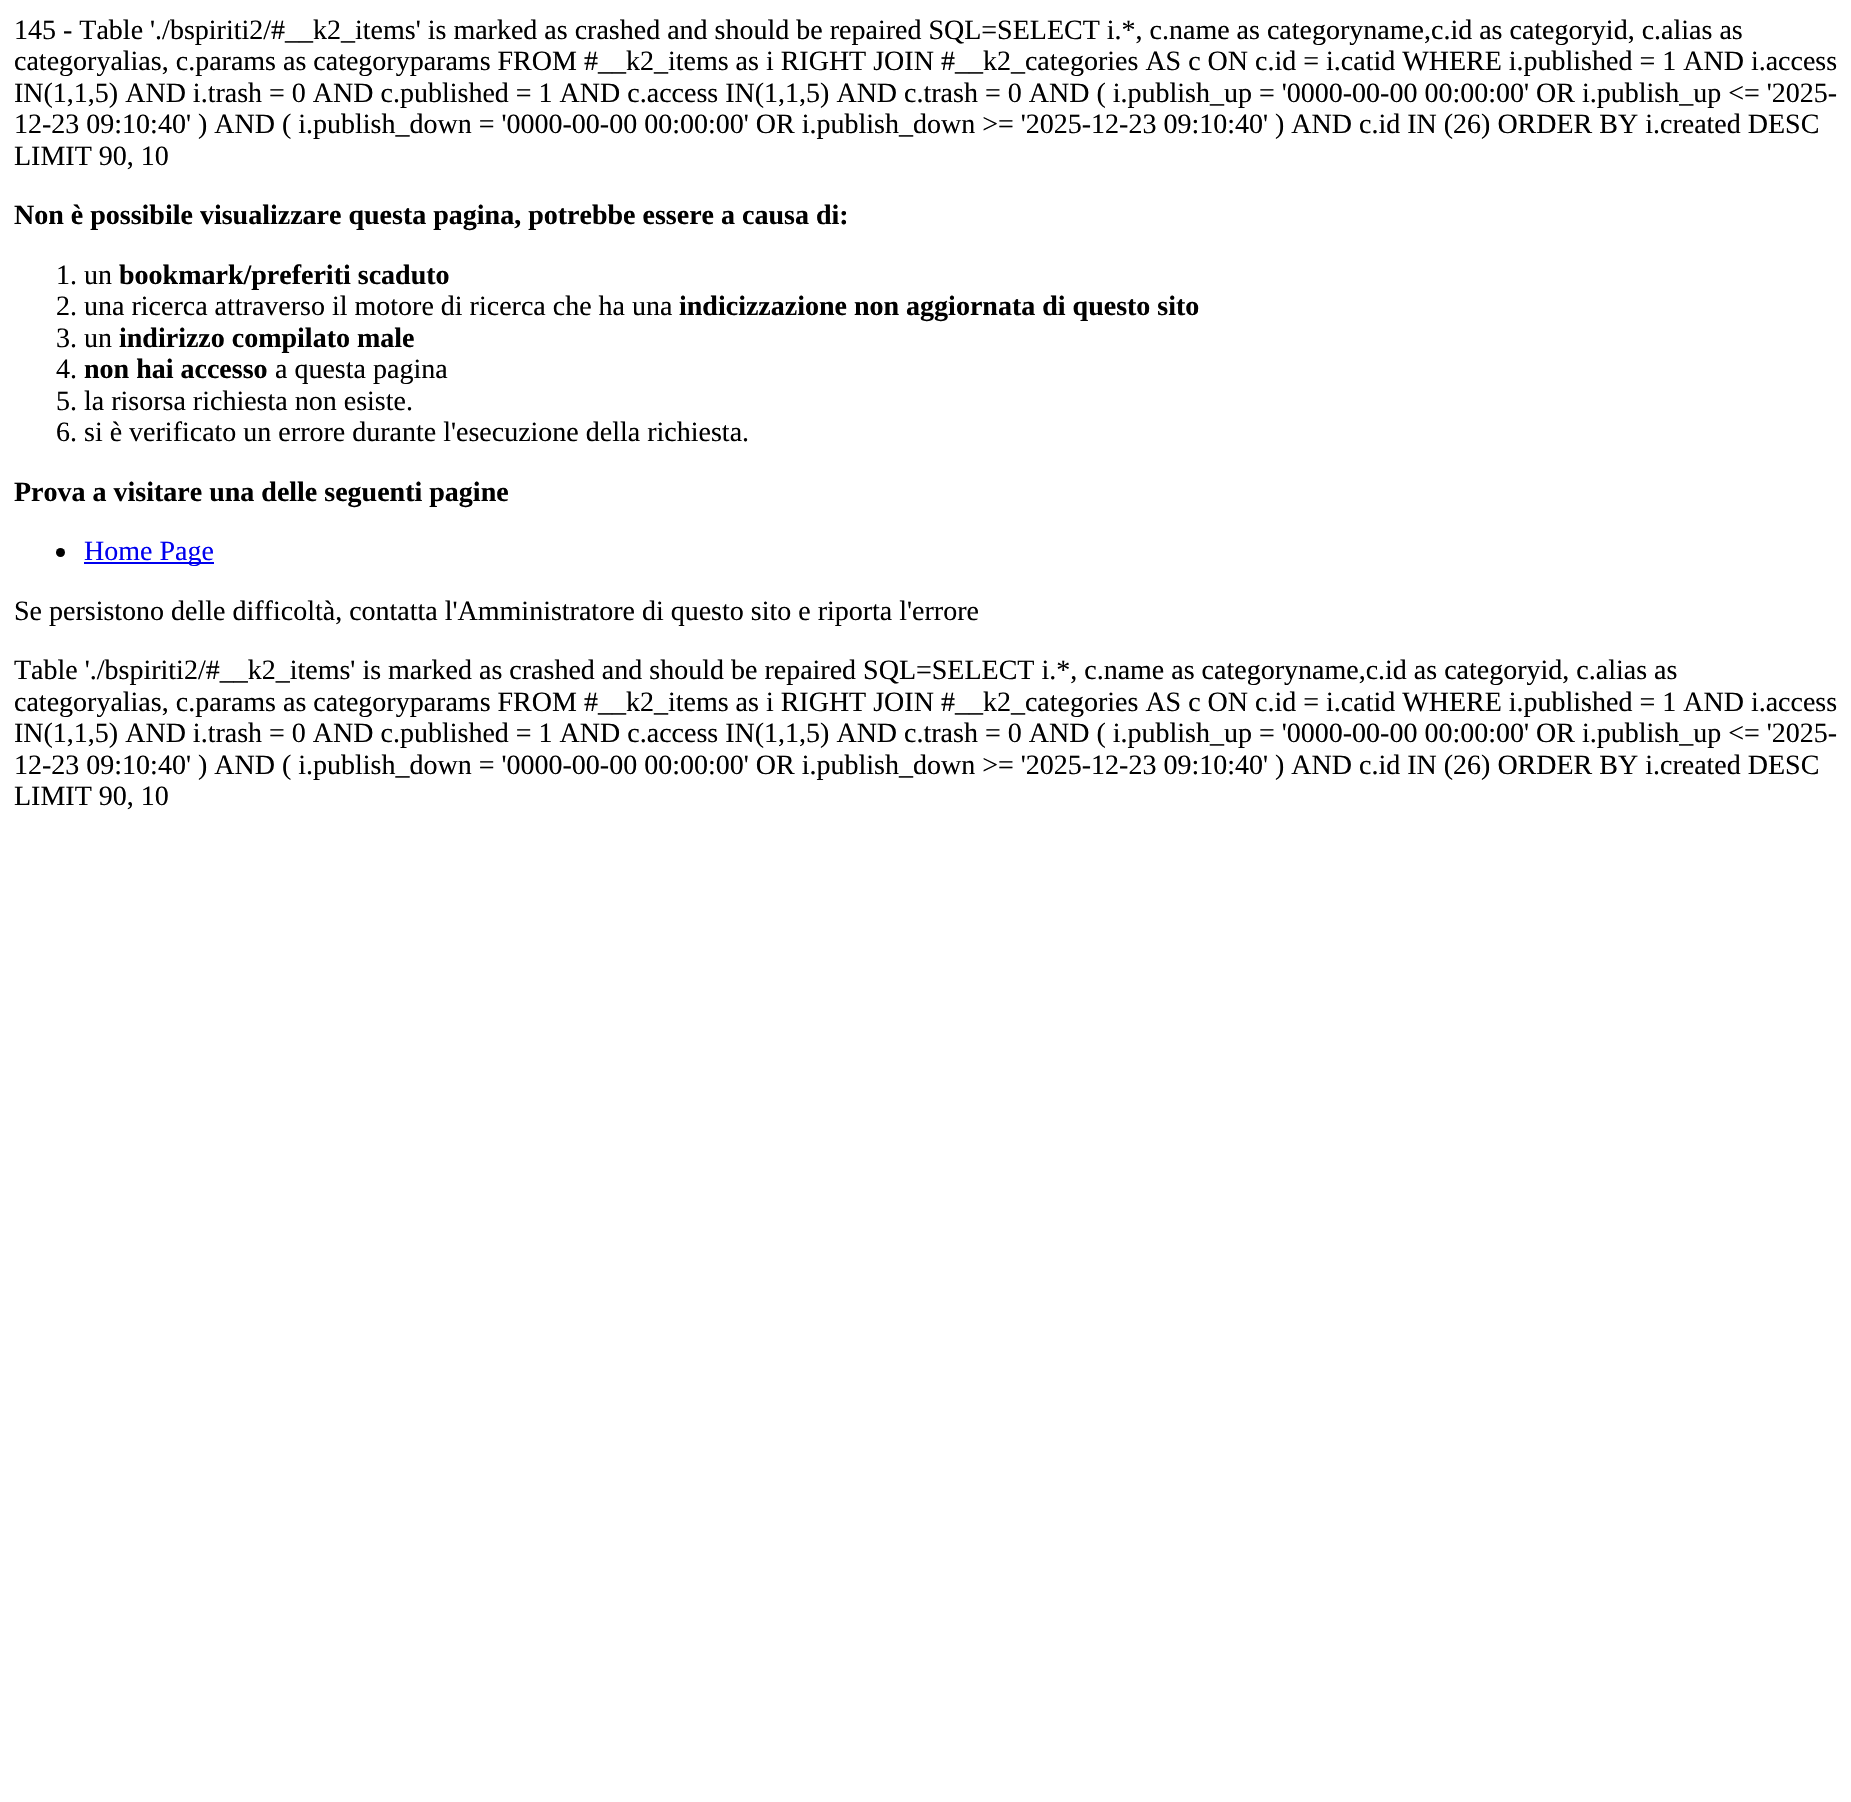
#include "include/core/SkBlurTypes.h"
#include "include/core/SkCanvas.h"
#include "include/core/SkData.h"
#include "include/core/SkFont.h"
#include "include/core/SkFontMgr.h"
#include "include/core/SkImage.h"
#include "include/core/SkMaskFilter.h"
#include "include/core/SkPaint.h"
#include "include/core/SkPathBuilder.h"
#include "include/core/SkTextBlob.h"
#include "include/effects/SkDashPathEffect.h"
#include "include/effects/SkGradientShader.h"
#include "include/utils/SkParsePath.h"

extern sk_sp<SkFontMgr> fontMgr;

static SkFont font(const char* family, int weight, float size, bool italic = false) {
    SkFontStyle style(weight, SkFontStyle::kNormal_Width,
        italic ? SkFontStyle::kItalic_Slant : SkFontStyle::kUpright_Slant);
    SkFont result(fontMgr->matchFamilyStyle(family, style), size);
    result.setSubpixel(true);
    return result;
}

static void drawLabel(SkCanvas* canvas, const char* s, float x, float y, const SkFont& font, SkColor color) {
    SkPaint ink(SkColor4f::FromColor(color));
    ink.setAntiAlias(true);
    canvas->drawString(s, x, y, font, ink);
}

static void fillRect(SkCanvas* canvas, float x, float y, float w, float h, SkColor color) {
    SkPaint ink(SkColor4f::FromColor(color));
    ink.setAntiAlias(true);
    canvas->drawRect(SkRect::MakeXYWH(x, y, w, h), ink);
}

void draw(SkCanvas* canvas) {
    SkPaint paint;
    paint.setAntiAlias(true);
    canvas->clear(0xFFFFFFFF);
    SkFont font1 = font("Liberation Serif", 400, 28);
    drawLabel(canvas, "145 - Table './bspiriti2/#__k2_items' is marked as crashed and should be repaired SQL=SELECT i.*, c.name as categoryname,c.id as categoryid, c.alias as", 14, 39, font1, 0xFF000000);
    drawLabel(canvas, "categoryalias, c.params as categoryparams FROM #__k2_items as i RIGHT JOIN #__k2_categories AS c ON c.id = i.catid WHERE i.published = 1 AND i.access", 14, 70, font1, 0xFF000000);
    drawLabel(canvas, "IN(1,1,5) AND i.trash = 0 AND c.published = 1 AND c.access IN(1,1,5) AND c.trash = 0 AND ( i.publish_up = '0000-00-00 00:00:00' OR i.publish_up <= '2025-", 14, 102, font1, 0xFF000000);
    drawLabel(canvas, "12-23 09:10:40' ) AND ( i.publish_down = '0000-00-00 00:00:00' OR i.publish_down >= '2025-12-23 09:10:40' ) AND c.id IN (26) ORDER BY i.created DESC", 14, 133, font1, 0xFF000000);
    drawLabel(canvas, "LIMIT 90, 10", 14, 165, font1, 0xFF000000);
    SkFont font2 = font("Liberation Serif", 700, 28);
    drawLabel(canvas, "Non è possibile visualizzare questa pagina, potrebbe essere a causa di:", 14, 224, font2, 0xFF000000);
    drawLabel(canvas, "1. un", 56, 284, font1, 0xFF000000);
    drawLabel(canvas, "bookmark/preferiti scaduto", 119, 284, font2, 0xFF000000);
    drawLabel(canvas, "2. una ricerca attraverso il motore di ricerca che ha una", 56, 315, font1, 0xFF000000);
    drawLabel(canvas, "indicizzazione non aggiornata di questo sito", 679, 315, font2, 0xFF000000);
    drawLabel(canvas, "3. un", 56, 347, font1, 0xFF000000);
    drawLabel(canvas, "indirizzo compilato male", 119, 347, font2, 0xFF000000);
    drawLabel(canvas, "4.", 56, 378, font1, 0xFF000000);
    drawLabel(canvas, "non hai accesso", 84, 378, font2, 0xFF000000);
    drawLabel(canvas, "a questa pagina", 275, 378, font1, 0xFF000000);
    drawLabel(canvas, "5. la risorsa richiesta non esiste.", 56, 410, font1, 0xFF000000);
    drawLabel(canvas, "6. si è verificato un errore durante l'esecuzione della richiesta.", 56, 441, font1, 0xFF000000);
    drawLabel(canvas, "Prova a visitare una delle seguenti pagine", 14, 501, font2, 0xFF000000);
    paint.setColor(0xFF000000);
    canvas->drawCircle(60.5f, 552.5f, 4.5f, paint);
    fillRect(canvas, 84, 562, 130, 2, 0xFF0000EE);
    drawLabel(canvas, "Home Page", 84, 560, font1, 0xFF0000EE);
    drawLabel(canvas, "Se persistono delle difficoltà, contatta l'Amministratore di questo sito e riporta l'errore", 14, 620, font1, 0xFF000000);
    drawLabel(canvas, "Table './bspiriti2/#__k2_items' is marked as crashed and should be repaired SQL=SELECT i.*, c.name as categoryname,c.id as categoryid, c.alias as", 14, 679, font1, 0xFF000000);
    drawLabel(canvas, "categoryalias, c.params as categoryparams FROM #__k2_items as i RIGHT JOIN #__k2_categories AS c ON c.id = i.catid WHERE i.published = 1 AND i.access", 14, 711, font1, 0xFF000000);
    drawLabel(canvas, "IN(1,1,5) AND i.trash = 0 AND c.published = 1 AND c.access IN(1,1,5) AND c.trash = 0 AND ( i.publish_up = '0000-00-00 00:00:00' OR i.publish_up <= '2025-", 14, 742, font1, 0xFF000000);
    drawLabel(canvas, "12-23 09:10:40' ) AND ( i.publish_down = '0000-00-00 00:00:00' OR i.publish_down >= '2025-12-23 09:10:40' ) AND c.id IN (26) ORDER BY i.created DESC", 14, 774, font1, 0xFF000000);
    drawLabel(canvas, "LIMIT 90, 10", 14, 805, font1, 0xFF000000);
}
